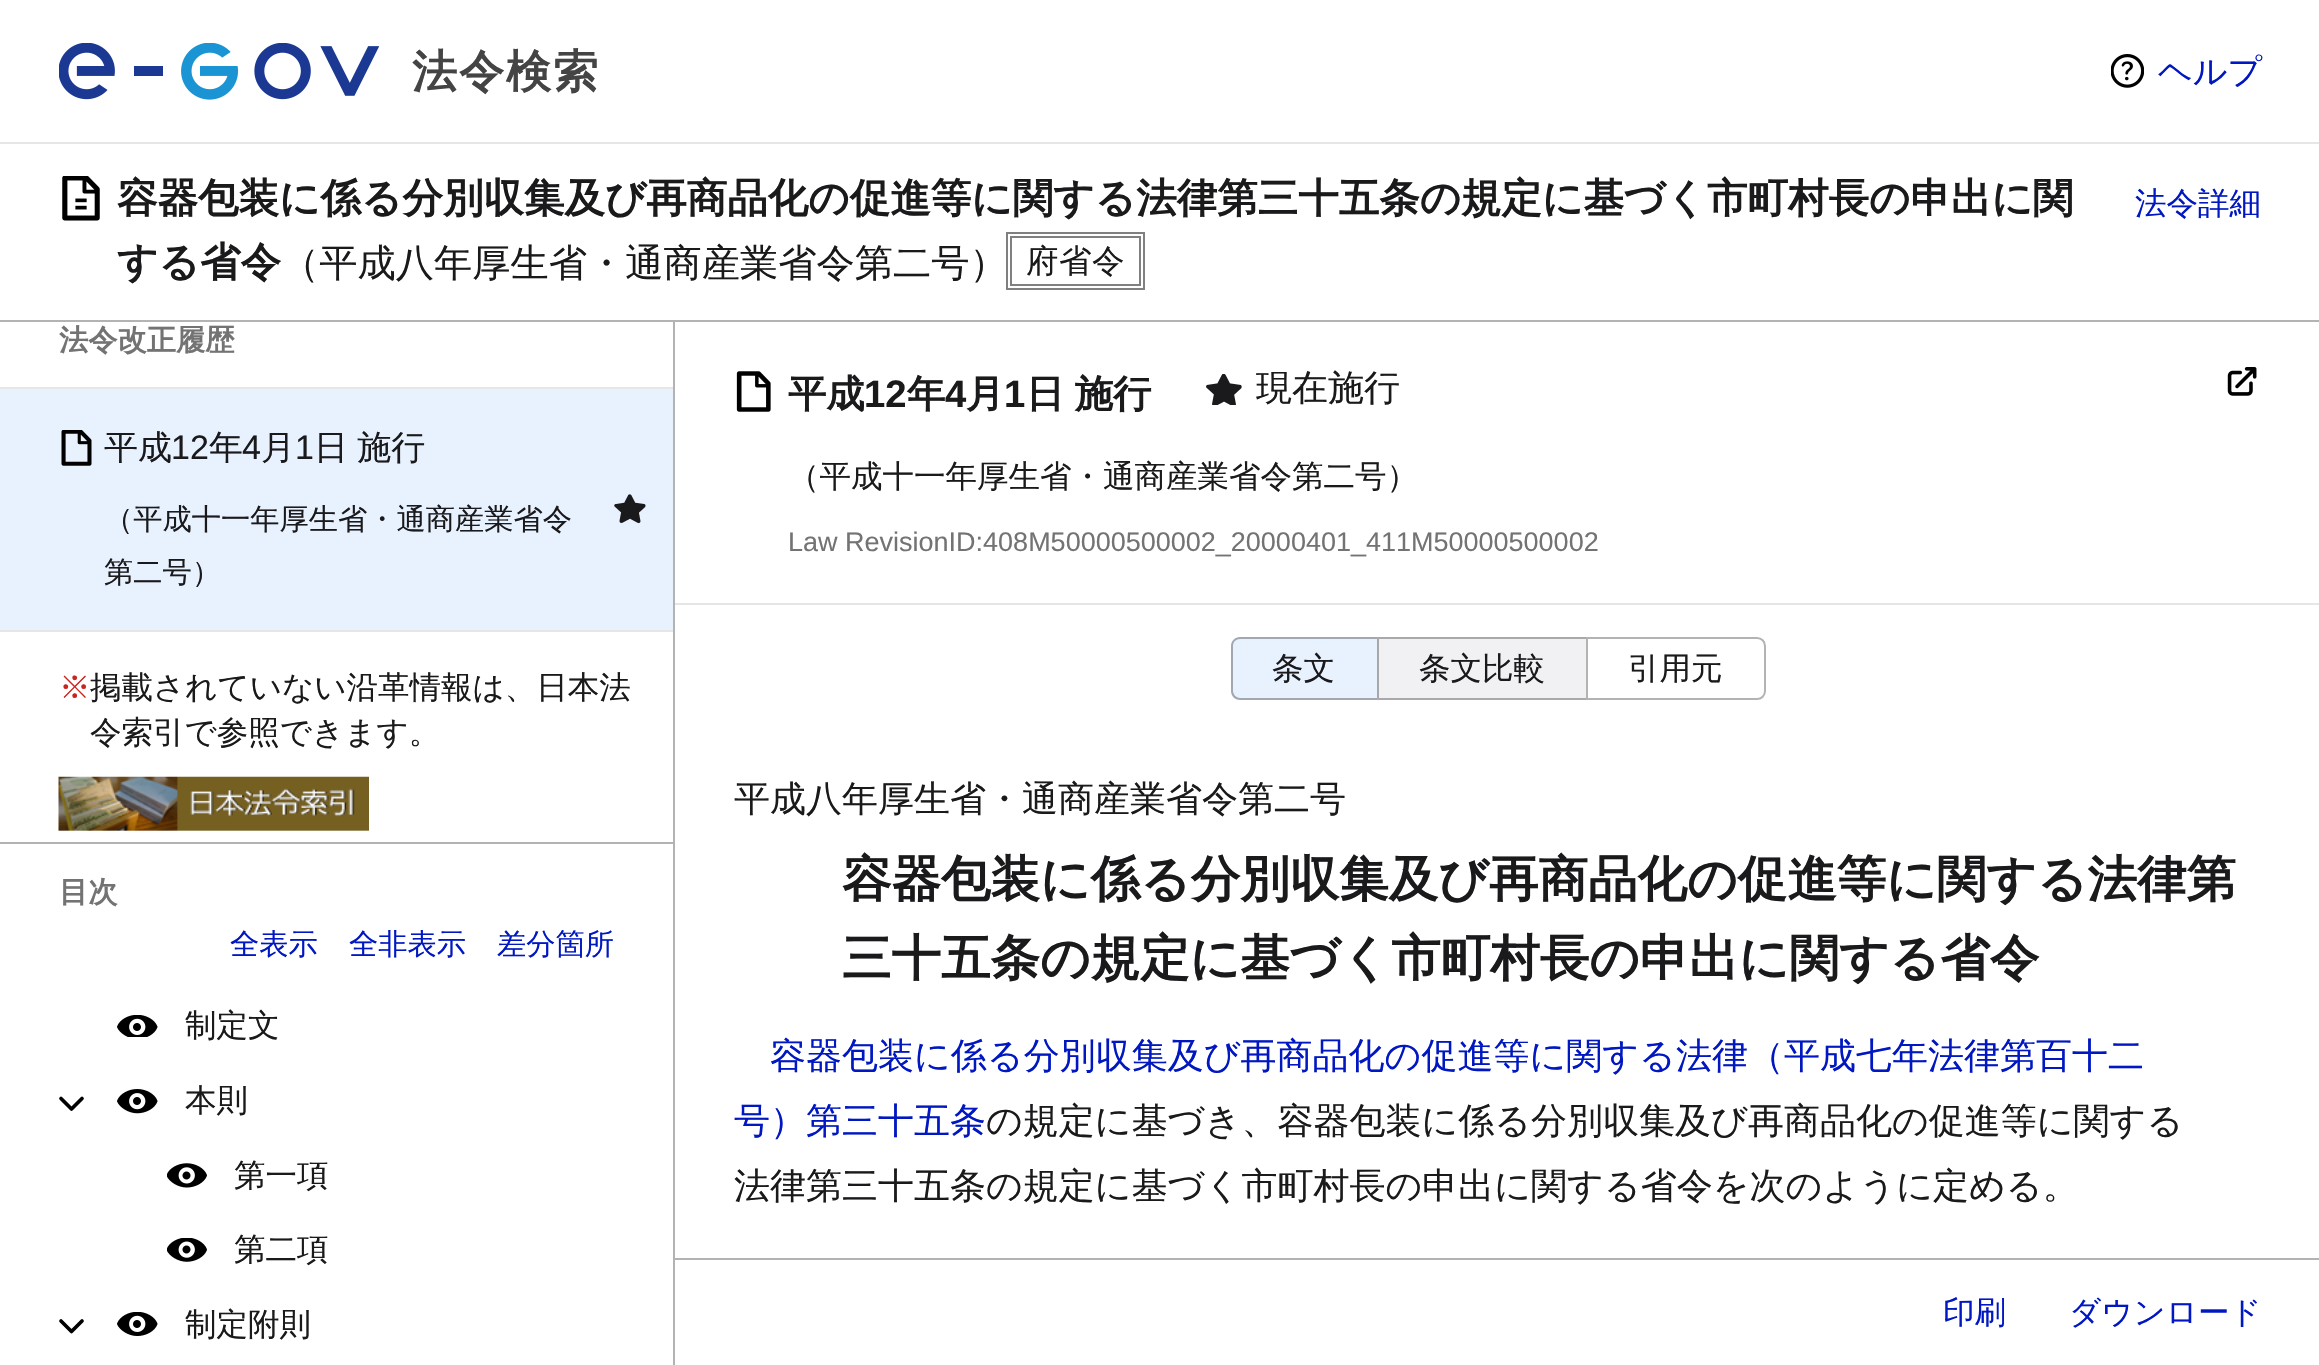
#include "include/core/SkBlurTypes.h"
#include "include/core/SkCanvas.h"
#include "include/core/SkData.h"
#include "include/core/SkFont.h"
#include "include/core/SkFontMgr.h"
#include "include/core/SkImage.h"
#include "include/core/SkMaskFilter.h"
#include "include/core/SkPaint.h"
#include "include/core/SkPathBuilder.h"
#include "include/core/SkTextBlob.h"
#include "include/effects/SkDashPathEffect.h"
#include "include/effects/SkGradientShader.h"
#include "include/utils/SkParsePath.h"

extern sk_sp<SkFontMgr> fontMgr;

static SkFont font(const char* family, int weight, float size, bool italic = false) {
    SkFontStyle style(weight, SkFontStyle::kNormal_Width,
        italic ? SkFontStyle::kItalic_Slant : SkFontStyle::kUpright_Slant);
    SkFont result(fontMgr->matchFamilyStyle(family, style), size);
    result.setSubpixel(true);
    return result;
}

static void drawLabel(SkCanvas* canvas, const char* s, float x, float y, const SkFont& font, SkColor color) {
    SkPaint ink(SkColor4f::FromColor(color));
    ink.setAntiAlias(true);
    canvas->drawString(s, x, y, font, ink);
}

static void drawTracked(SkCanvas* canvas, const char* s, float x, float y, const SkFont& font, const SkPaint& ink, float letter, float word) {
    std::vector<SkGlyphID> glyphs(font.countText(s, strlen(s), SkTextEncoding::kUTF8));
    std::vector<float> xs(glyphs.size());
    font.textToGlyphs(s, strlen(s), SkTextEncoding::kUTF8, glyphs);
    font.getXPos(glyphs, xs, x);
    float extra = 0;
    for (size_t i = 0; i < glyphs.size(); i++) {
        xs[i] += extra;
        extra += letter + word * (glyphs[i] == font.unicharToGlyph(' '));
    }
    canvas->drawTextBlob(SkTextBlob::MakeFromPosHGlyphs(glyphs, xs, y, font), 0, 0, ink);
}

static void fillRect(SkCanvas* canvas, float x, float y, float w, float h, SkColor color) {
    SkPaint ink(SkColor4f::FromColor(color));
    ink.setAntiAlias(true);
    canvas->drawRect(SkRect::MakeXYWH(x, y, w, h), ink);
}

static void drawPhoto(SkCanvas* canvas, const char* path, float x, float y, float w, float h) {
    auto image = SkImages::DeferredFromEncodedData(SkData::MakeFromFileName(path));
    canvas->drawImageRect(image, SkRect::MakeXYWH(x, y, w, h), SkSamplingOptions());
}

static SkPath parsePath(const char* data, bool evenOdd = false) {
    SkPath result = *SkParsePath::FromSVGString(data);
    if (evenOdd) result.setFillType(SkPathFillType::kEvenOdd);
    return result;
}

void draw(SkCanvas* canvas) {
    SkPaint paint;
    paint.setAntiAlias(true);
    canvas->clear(0xFFFFFFFF);
    fillRect(canvas, 0, 142, 2319, 2, 0xFFE6E6E6);
    drawPhoto(canvas, "assets/img1.png", 59, 43, 321, 57);
    SkFont font1 = font("WenQuanYi Zen Hei", 700, 45);
    paint.setColor(0xFF444444);
    drawTracked(canvas, "法令検索", 412, 87, font1, paint, 2, 0);
    drawPhoto(canvas, "assets/img2.png", 2111, 54, 33, 34);
    SkFont font2 = font("WenQuanYi Zen Hei", 500, 34);
    drawLabel(canvas, "ヘルプ", 2158, 83, font2, 0xFF0017C1);
    fillRect(canvas, 0, 320, 2319, 2, 0xFFB3B3B3);
    drawPhoto(canvas, "assets/img3.png", 62, 176, 38, 45);
    SkFont font3 = font("WenQuanYi Zen Hei", 700, 40.5f);
    drawLabel(canvas, "容器包装に係る分別収集及び再商品化の促進等に関する法律第三十五条の規定に基づく市町村長の申出に関", 117, 212, font3, 0xFF1A1A1C);
    drawLabel(canvas, "する省令", 117, 276, font3, 0xFF1A1A1C);
    SkFont font4 = font("WenQuanYi Zen Hei", 500, 38.25f);
    drawLabel(canvas, "（平成八年厚生省・通商産業省令第二号）", 281, 276, font4, 0xFF1A1A1C);
    paint.setStroke(true);
    paint.setStrokeWidth(2);
    paint.setColor(0xFF808080);
    canvas->drawRect(SkRect::MakeXYWH(1007, 233, 137, 56), paint);
    canvas->drawRect(SkRect::MakeXYWH(1011, 237, 129, 48), paint);
    SkFont font5 = font("WenQuanYi Zen Hei", 500, 32.5f);
    paint.setStroke(false);
    paint.setColor(0xFF1A1A1C);
    drawTracked(canvas, "府省令", 1026, 272, font5, paint, 0.5f, 0);
    SkFont font6 = font("WenQuanYi Zen Hei", 500, 31.5f);
    drawLabel(canvas, "法令詳細", 2135, 214, font6, 0xFF0017C1);
    fillRect(canvas, 673, 322, 2, 1043, 0xFFB3B3B3);
    fillRect(canvas, 0, 842, 673, 2, 0xFFB3B3B3);
    SkFont font7 = font("WenQuanYi Zen Hei", 700, 29.25f);
    drawLabel(canvas, "法令改正履歴", 59, 350, font7, 0xFF737373);
    fillRect(canvas, 0, 387, 673, 2, 0xFFE6E6E6);
    fillRect(canvas, 0, 389, 673, 241, 0xFFE8F1FE);
    drawPhoto(canvas, "assets/img4.png", 61, 430, 31, 36);
    drawLabel(canvas, "平成", 104, 459, font2, 0xFF1A1A1C);
    SkFont font8 = font("Liberation Sans", 400, 34);
    drawLabel(canvas, "12", 171, 459, font8, 0xFF1A1A1C);
    drawLabel(canvas, "年", 209, 459, font2, 0xFF1A1A1C);
    drawLabel(canvas, "4", 242, 459, font8, 0xFF1A1A1C);
    drawLabel(canvas, "月", 261, 459, font2, 0xFF1A1A1C);
    drawLabel(canvas, "1", 295, 459, font8, 0xFF1A1A1C);
    drawTracked(canvas, "日 施行", 314, 459, font2, paint, 0, -1);
    SkFont font9 = font("WenQuanYi Zen Hei", 500, 29.25f);
    drawLabel(canvas, "（平成十一年厚生省・通商産業省令", 104, 529, font9, 0xFF1A1A1C);
    drawLabel(canvas, "第二号）", 104, 582, font9, 0xFF1A1A1C);
    drawPhoto(canvas, "assets/img5.png", 614, 494, 32, 30);
    fillRect(canvas, 0, 630, 673, 2, 0xFFE6E6E6);
    drawLabel(canvas, "※", 59, 698, font6, 0xFFCA241E);
    drawLabel(canvas, "掲載されていない沿革情報は、日本法", 90, 698, font6, 0xFF1A1A1C);
    drawLabel(canvas, "令索引で参照できます。", 90, 743, font6, 0xFF1A1A1C);
    drawPhoto(canvas, "assets/img6.png", 58, 776, 311, 55);
    drawLabel(canvas, "目次", 59, 902, font7, 0xFF737373);
    drawLabel(canvas, "全表示", 230, 954, font9, 0xFF0017C1);
    drawLabel(canvas, "全非表示", 349, 954, font9, 0xFF0017C1);
    drawLabel(canvas, "差分箇所", 497, 954, font9, 0xFF0017C1);
    drawPhoto(canvas, "assets/img7.png", 117, 1015, 41, 22);
    drawLabel(canvas, "制定文", 185, 1036, font6, 0xFF1A1A1C);
    paint.setStroke(true);
    paint.setStrokeWidth(3.7f);
    paint.setStrokeCap(SkPaint::kRound_Cap);
    paint.setStrokeJoin(SkPaint::kRound_Join);
    paint.setColor(0xFF000000);
    canvas->drawPath(parsePath("M61 1098.5L71.5 1109L82 1098.5"), paint);
    drawPhoto(canvas, "assets/img8.png", 117, 1089, 41, 25);
    drawLabel(canvas, "本則", 185, 1111, font6, 0xFF1A1A1C);
    drawPhoto(canvas, "assets/img9.png", 167, 1163, 40, 25);
    drawLabel(canvas, "第一項", 234, 1186, font6, 0xFF1A1A1C);
    drawPhoto(canvas, "assets/img10.png", 167, 1238, 40, 24);
    drawLabel(canvas, "第二項", 234, 1260, font6, 0xFF1A1A1C);
    canvas->drawPath(parsePath("M61 1321L71.5 1331.5L82 1321"), paint);
    drawPhoto(canvas, "assets/img11.png", 117, 1312, 41, 24);
    drawLabel(canvas, "制定附則", 185, 1335, font6, 0xFF1A1A1C);
    fillRect(canvas, 675, 603, 1644, 2, 0xFFE6E6E6);
    drawPhoto(canvas, "assets/img12.png", 736, 371, 35, 41);
    SkFont font10 = font("WenQuanYi Zen Hei", 700, 38.25f);
    drawLabel(canvas, "平成", 788, 407, font10, 0xFF1A1A1C);
    SkFont font11 = font("Liberation Sans", 700, 38.25f);
    drawLabel(canvas, "12", 864, 407, font11, 0xFF1A1A1C);
    drawLabel(canvas, "年", 907, 407, font10, 0xFF1A1A1C);
    drawLabel(canvas, "4", 945, 407, font11, 0xFF1A1A1C);
    drawLabel(canvas, "月", 966, 407, font10, 0xFF1A1A1C);
    drawLabel(canvas, "1", 1004, 407, font11, 0xFF1A1A1C);
    paint.setStroke(false);
    paint.setColor(0xFF1A1A1C);
    drawTracked(canvas, "日 施行", 1026, 407, font10, paint, 0, -1);
    drawPhoto(canvas, "assets/img13.png", 1206, 374, 36, 31);
    SkFont font12 = font("WenQuanYi Zen Hei", 500, 36);
    drawLabel(canvas, "現在施行", 1256, 400, font12, 0xFF1A1A1C);
    drawPhoto(canvas, "assets/img14.png", 2227, 367, 30, 29);
    drawLabel(canvas, "（平成十一年厚生省・通商産業省令第二号）", 788, 487, font6, 0xFF1A1A1C);
    SkFont font13 = font("Liberation Sans", 400, 27);
    drawLabel(canvas, "Law RevisionID:408M50000500002_20000401_411M50000500002", 788, 551, font13, 0xFF737373);
    paint.setColor(0xFFE8F1FE);
    canvas->drawPath(parsePath("M1240 637H1377V700H1240C1235 700 1231 696 1231 691V646C1231 641 1235 637 1240 637Z"), paint);
    paint.setColor(0x4D000000);
    canvas->drawPath(parsePath("M1240 637H1377V700H1240C1235 700 1231 696 1231 691V646C1231 641 1235 637 1240 637ZM1240 639H1377V698H1240C1236 698 1233 694 1233 691V646C1233 642 1236 639 1240 639Z", true), paint);
    drawLabel(canvas, "条文", 1272, 679, font6, 0xFF1A1A1C);
    fillRect(canvas, 1377, 637, 209, 63, 0xFFF1F1F4);
    paint.setColor(0xFFA9A9AB);
    canvas->drawPath(parsePath("M1377 637H1586V639H1379Z"), paint);
    canvas->drawPath(parsePath("M1586 700H1377L1379 698H1586Z"), paint);
    paint.setColor(0x4D000000);
    canvas->drawPath(parsePath("M1377 700V637L1379 639V698Z"), paint);
    drawLabel(canvas, "条文比較", 1419, 679, font6, 0xFF1A1A1C);
    paint.setStroke(true);
    paint.setStrokeWidth(2);
    paint.setStrokeCap(SkPaint::kButt_Cap);
    paint.setStrokeJoin(SkPaint::kMiter_Join);
    paint.setColor(0xFFB3B3B3);
    canvas->drawPath(parsePath("M1587 638H1757C1761.5 638 1765 641.5 1765 646V691C1765 695.5 1761.5 699 1757 699H1587Z"), paint);
    drawLabel(canvas, "引用元", 1628, 679, font6, 0xFF1A1A1C);
    drawLabel(canvas, "平成八年厚生省・通商産業省令第二号", 734, 811, font12, 0xFF1A1A1C);
    SkFont font14 = font("WenQuanYi Zen Hei", 700, 49.5f);
    drawLabel(canvas, "容器包装に係る分別収集及び再商品化の促進等に関する法律第", 842, 896, font14, 0xFF1A1A1C);
    drawLabel(canvas, "三十五条の規定に基づく市町村長の申出に関する省令", 842, 975, font14, 0xFF1A1A1C);
    drawLabel(canvas, "容器包装に係る分別収集及び再商品化の促進等に関する法律（平成七年法律第百十二", 770, 1068, font12, 0xFF0017C1);
    drawLabel(canvas, "号）第三十五条", 734, 1133, font12, 0xFF0017C1);
    drawLabel(canvas, "の規定に基づき、容器包装に係る分別収集及び再商品化の促進等に関する", 986, 1133, font12, 0xFF1A1A1C);
    drawLabel(canvas, "法律第三十五条の規定に基づく市町村長の申出に関する省令を次のように定める。", 734, 1198, font12, 0xFF1A1A1C);
    fillRect(canvas, 675, 1258, 1644, 2, 0xFFB3B3B3);
    drawLabel(canvas, "印刷", 1943, 1323, font6, 0xFF0017C1);
    drawLabel(canvas, "ダウンロード", 2069, 1323, font6, 0xFF0017C1);
}
